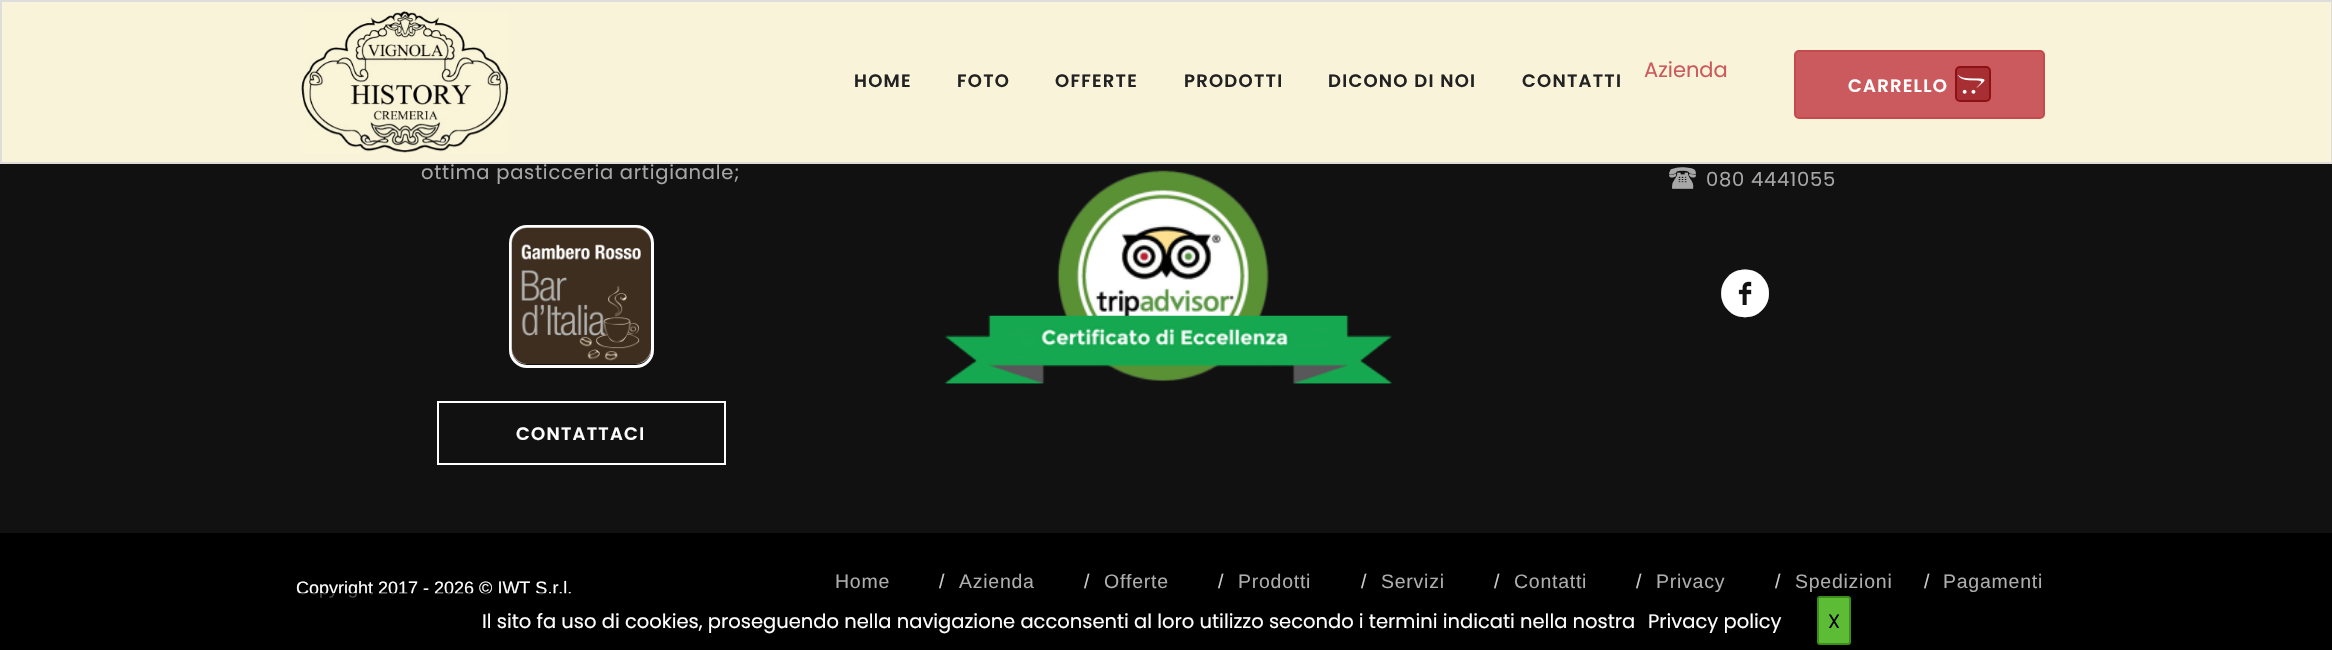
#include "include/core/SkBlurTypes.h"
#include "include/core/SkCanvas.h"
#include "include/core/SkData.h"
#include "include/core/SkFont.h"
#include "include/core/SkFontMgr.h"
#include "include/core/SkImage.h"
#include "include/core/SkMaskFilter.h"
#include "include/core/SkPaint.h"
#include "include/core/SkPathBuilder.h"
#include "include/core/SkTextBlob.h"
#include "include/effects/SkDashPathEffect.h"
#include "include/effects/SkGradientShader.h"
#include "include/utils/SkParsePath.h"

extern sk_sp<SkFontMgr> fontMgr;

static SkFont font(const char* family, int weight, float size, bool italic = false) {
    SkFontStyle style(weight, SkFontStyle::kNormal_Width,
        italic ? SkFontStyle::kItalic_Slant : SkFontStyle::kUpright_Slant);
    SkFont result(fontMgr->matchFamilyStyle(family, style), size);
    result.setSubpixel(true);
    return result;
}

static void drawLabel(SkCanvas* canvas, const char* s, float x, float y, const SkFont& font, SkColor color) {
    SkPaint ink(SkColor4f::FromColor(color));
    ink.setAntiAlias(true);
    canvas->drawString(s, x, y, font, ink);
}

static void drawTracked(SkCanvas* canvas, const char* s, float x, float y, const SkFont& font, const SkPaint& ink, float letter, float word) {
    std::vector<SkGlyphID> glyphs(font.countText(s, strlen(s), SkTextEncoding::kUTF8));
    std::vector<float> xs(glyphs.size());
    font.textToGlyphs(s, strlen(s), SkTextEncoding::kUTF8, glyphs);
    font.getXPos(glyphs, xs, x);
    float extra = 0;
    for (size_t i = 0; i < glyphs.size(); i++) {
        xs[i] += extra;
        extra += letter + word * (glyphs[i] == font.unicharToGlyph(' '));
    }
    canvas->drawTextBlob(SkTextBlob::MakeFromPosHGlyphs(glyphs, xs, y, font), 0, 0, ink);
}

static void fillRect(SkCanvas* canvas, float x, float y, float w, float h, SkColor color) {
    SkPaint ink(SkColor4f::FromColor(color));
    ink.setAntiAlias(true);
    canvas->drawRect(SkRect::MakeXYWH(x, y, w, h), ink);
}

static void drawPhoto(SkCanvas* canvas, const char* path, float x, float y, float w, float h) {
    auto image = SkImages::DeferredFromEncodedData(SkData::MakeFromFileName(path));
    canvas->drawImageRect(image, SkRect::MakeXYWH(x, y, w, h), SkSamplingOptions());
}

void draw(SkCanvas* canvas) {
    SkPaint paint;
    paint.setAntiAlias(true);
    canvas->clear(0xFF000000);
    paint.setColor(0xFFF9F3D9);
    canvas->drawRect(SkRect::MakeXYWH(1, 1, 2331, 162), paint);
    paint.setStroke(true);
    paint.setStrokeWidth(2);
    paint.setColor(0xFFDDDDDD);
    canvas->drawRect(SkRect::MakeXYWH(1, 1, 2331, 162), paint);
    drawPhoto(canvas, "assets/img1.png", 301, 10, 208, 143);
    SkFont font1 = font("Poppins", 400, 21);
    drawLabel(canvas, "Azienda", 1644, 77, font1, 0xFFCB5A5E);
    SkFont font2 = font("Poppins", 600, 18);
    paint.setStroke(false);
    paint.setColor(0xFF222222);
    drawTracked(canvas, "HOME", 854, 87, font2, paint, 1.25f, 0);
    drawTracked(canvas, "FOTO", 957, 87, font2, paint, 1.25f, 0);
    drawTracked(canvas, "OFFERTE", 1055, 87, font2, paint, 1.25f, 0);
    drawTracked(canvas, "PRODOTTI", 1184, 87, font2, paint, 1.25f, 0);
    drawTracked(canvas, "DICONO DI NOI", 1328, 87, font2, paint, 1.25f, 0);
    drawTracked(canvas, "CONTATTI", 1522, 87, font2, paint, 1.25f, 0);
    paint.setColor(0xFFCB5A5E);
    canvas->drawRoundRect(SkRect::MakeXYWH(1795, 51, 249, 67), 4, 4, paint);
    paint.setStroke(true);
    paint.setColor(0xFFC54A4E);
    canvas->drawRoundRect(SkRect::MakeXYWH(1795, 51, 249, 67), 4, 4, paint);
    paint.setStroke(false);
    paint.setColor(0xFFFFFFFF);
    drawTracked(canvas, "CARRELLO", 1848, 92, font2, paint, 1.25f, 0);
    paint.setColor(0xFFA72E32);
    canvas->drawRoundRect(SkRect::MakeXYWH(1956, 67, 34, 34), 4, 4, paint);
    paint.setStroke(true);
    paint.setColor(0xFF8C1115);
    canvas->drawRoundRect(SkRect::MakeXYWH(1956, 67, 34, 34), 4, 4, paint);
    drawPhoto(canvas, "assets/img2.png", 1957, 74, 28, 20);
    fillRect(canvas, 0, 164, 2332, 369, 0xFF111111);
    SkFont font3 = font("Poppins", 400, 19.5f);
    paint.setStroke(false);
    paint.setColor(0xFFA7A7A7);
    drawTracked(canvas, "ottima pasticceria artigianale;", 421, 179, font3, paint, 0.75f, 0);
    paint.setStroke(true);
    paint.setStrokeWidth(3);
    paint.setColor(0xFFFFFFFF);
    canvas->drawRoundRect(SkRect::MakeXYWH(510.5f, 226.5f, 142, 140), 16.5f, 16.5f, paint);
    drawPhoto(canvas, "assets/img3.png", 511, 227, 140, 137);
    paint.setStrokeWidth(2);
    canvas->drawRect(SkRect::MakeXYWH(438, 402, 287, 62), paint);
    paint.setStroke(false);
    drawTracked(canvas, "CONTATTACI", 516, 440, font2, paint, 1.25f, 0);
    drawPhoto(canvas, "assets/img4.png", 944, 170, 448, 214);
    SkFont font4 = font("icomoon", 400, 30);
    paint.setColor(0xFFA7A7A7);
    drawTracked(canvas, "q", 1667, 186, font4, paint, 0.75f, 0);
    drawTracked(canvas, "080 4441055", 1706, 186, font3, paint, 0.75f, 0);
    SkFont font5 = font("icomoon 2", 400, 68);
    drawLabel(canvas, "f", 1718, 330, font5, 0xFFFFFFFF);
    SkFont font6 = font("Liberation Sans", 400, 18);
    drawLabel(canvas, "Copyright 2017 - 2026 © IWT S.r.l.", 296, 594, font6, 0xFFFFFFFF);
    SkFont font7 = font("Arimo", 400, 19.5f);
    paint.setColor(0xFFADADAD);
    drawTracked(canvas, "Home", 835, 588, font7, paint, 0.75f, 0);
    paint.setColor(0xFFCCCCCC);
    drawTracked(canvas, "/", 939, 588, font7, paint, 0.75f, 0);
    paint.setColor(0xFFADADAD);
    drawTracked(canvas, "Azienda", 959, 588, font7, paint, 0.75f, 0);
    paint.setColor(0xFFCCCCCC);
    drawTracked(canvas, "/", 1084, 588, font7, paint, 0.75f, 0);
    paint.setColor(0xFFADADAD);
    drawTracked(canvas, "Offerte", 1104, 588, font7, paint, 0.75f, 0);
    paint.setColor(0xFFCCCCCC);
    drawTracked(canvas, "/", 1218, 588, font7, paint, 0.75f, 0);
    paint.setColor(0xFFADADAD);
    drawTracked(canvas, "Prodotti", 1238, 588, font7, paint, 0.75f, 0);
    paint.setColor(0xFFCCCCCC);
    drawTracked(canvas, "/", 1361, 588, font7, paint, 0.75f, 0);
    paint.setColor(0xFFADADAD);
    drawTracked(canvas, "Servizi", 1381, 588, font7, paint, 0.75f, 0);
    paint.setColor(0xFFCCCCCC);
    drawTracked(canvas, "/", 1494, 588, font7, paint, 0.75f, 0);
    paint.setColor(0xFFADADAD);
    drawTracked(canvas, "Contatti", 1514, 588, font7, paint, 0.75f, 0);
    paint.setColor(0xFFCCCCCC);
    drawTracked(canvas, "/", 1636, 588, font7, paint, 0.75f, 0);
    paint.setColor(0xFFADADAD);
    drawTracked(canvas, "Privacy", 1656, 588, font7, paint, 0.75f, 0);
    paint.setColor(0xFFCCCCCC);
    drawTracked(canvas, "/", 1775, 588, font7, paint, 0.75f, 0);
    paint.setColor(0xFFADADAD);
    drawTracked(canvas, "Spedizioni", 1795, 588, font7, paint, 0.75f, 0);
    paint.setColor(0xFFCCCCCC);
    drawTracked(canvas, "/", 1924, 588, font7, paint, 0.75f, 0);
    paint.setColor(0xFFADADAD);
    drawTracked(canvas, "Pagamenti", 1943, 588, font7, paint, 0.75f, 0);
    fillRect(canvas, 299, 593, 272, 5, 0xB8000000);
    drawLabel(canvas, "Il sito fa uso di cookies, proseguendo nella navigazione acconsenti al loro utilizzo secondo i termini indicati nella nostra", 482, 628, font3, 0xFFFFFFFF);
    drawLabel(canvas, "Privacy policy", 1648, 628, font3, 0xFFFFFFFF);
    paint.setColor(0xFF5DBC36);
    canvas->drawRoundRect(SkRect::MakeXYWH(1818, 597, 32, 47), 2, 2, paint);
    paint.setStroke(true);
    paint.setColor(0xFF3C8E19);
    canvas->drawRoundRect(SkRect::MakeXYWH(1818, 597, 32, 47), 2, 2, paint);
    drawLabel(canvas, "X", 1828, 628, font3, 0xFF000000);
}
